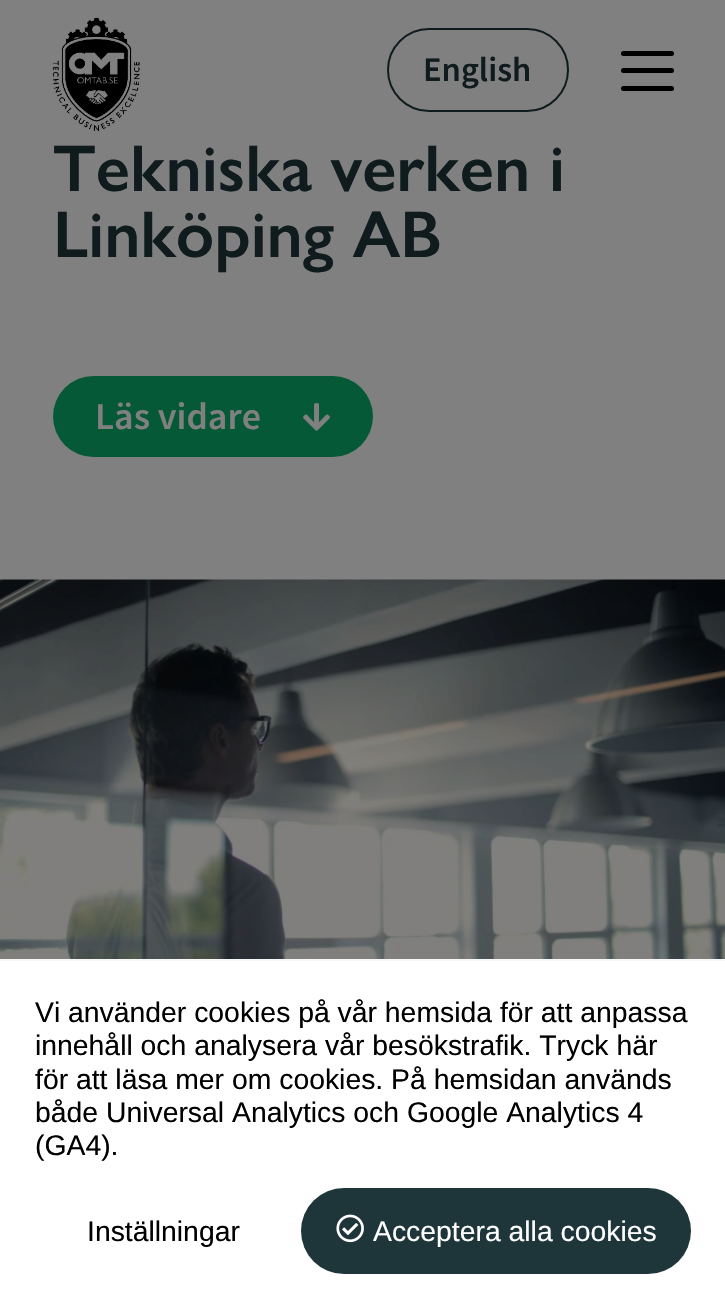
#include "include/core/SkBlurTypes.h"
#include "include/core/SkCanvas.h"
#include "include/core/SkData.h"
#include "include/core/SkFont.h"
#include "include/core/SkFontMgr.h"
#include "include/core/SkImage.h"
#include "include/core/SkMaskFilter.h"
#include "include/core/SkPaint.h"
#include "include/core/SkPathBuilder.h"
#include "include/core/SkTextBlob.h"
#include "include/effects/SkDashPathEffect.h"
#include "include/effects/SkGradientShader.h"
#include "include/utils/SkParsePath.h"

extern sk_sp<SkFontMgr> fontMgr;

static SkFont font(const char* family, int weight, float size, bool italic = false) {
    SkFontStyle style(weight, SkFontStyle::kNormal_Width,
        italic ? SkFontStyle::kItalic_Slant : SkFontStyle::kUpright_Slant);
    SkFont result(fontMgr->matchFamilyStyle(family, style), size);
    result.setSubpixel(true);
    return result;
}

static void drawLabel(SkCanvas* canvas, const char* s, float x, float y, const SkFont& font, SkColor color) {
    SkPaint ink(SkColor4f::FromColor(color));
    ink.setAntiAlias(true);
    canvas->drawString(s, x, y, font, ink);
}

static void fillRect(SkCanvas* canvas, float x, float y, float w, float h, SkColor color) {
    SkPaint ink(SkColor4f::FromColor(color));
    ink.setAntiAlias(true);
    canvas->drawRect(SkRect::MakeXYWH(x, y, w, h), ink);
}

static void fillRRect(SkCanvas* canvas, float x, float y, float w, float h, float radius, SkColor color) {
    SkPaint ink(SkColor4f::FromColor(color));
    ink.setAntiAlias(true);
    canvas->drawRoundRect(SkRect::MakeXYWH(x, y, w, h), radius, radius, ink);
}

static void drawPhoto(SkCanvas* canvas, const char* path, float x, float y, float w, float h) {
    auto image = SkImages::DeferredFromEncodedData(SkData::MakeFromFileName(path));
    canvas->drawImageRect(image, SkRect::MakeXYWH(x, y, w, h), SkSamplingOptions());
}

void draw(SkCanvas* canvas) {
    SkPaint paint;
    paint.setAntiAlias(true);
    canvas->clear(0xFF808080);
    drawPhoto(canvas, "assets/img1.png", 52, 17, 89, 115);
    drawPhoto(canvas, "assets/img2.png", 53, 18, 87, 113);
    paint.setStroke(true);
    paint.setStrokeWidth(2);
    paint.setColor(0xFF0F1B1D);
    canvas->drawRoundRect(SkRect::MakeXYWH(388, 29, 180, 82), 41, 41, paint);
    SkFont font1 = font("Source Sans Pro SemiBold", 600, 34.5f);
    drawLabel(canvas, "English", 423, 81, font1, 0xFF0F1B1D);
    fillRRect(canvas, 621, 51, 53, 5, 2.5f, 0xFF000000);
    fillRRect(canvas, 621, 68, 53, 5, 2.5f, 0xFF000000);
    fillRRect(canvas, 621, 86, 53, 5, 2.5f, 0xFF000000);
    SkFont font2 = font("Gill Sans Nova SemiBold", 600, 66.25f);
    drawLabel(canvas, "Tekniska verken i", 53, 191, font2, 0xFF0F1B1D);
    drawLabel(canvas, "Linköping AB", 53, 257, font2, 0xFF0F1B1D);
    fillRRect(canvas, 53, 376, 320, 81, 40.5f, 0xFF065936);
    SkFont font3 = font("Source Sans Pro SemiBold", 600, 38);
    drawLabel(canvas, "Läs vidare", 95, 429, font3, 0xFF808080);
    drawPhoto(canvas, "assets/img3.png", 303, 403, 27, 28);
    drawPhoto(canvas, "assets/img4.png", 0, 579, 725, 380);
    fillRect(canvas, 0, 961, 725, 348, 0xFFFFFFFF);
    fillRect(canvas, 0, 959, 725, 2, 0xFFF8F8F8);
    SkFont font4 = font("Liberation Sans", 400, 28.35f);
    drawLabel(canvas, "Vi använder cookies på vår hemsida för att anpassa", 35, 1022, font4, 0xFF000000);
    drawLabel(canvas, "innehåll och analysera vår besökstrafik. Tryck här", 35, 1055, font4, 0xFF000000);
    drawLabel(canvas, "för att läsa mer om cookies. På hemsidan används", 35, 1089, font4, 0xFF000000);
    drawLabel(canvas, "både Universal Analytics och Google Analytics 4", 35, 1122, font4, 0xFF000000);
    drawLabel(canvas, "(GA4).", 35, 1155, font4, 0xFF000000);
    drawLabel(canvas, "Inställningar", 87, 1241, font4, 0xFF000000);
    fillRRect(canvas, 301, 1188, 390, 86, 43, 0xFF1E363A);
    drawPhoto(canvas, "assets/img5.png", 336, 1214, 28, 29);
    drawLabel(canvas, "Acceptera alla cookies", 373, 1241, font4, 0xFFFFFFFF);
}
